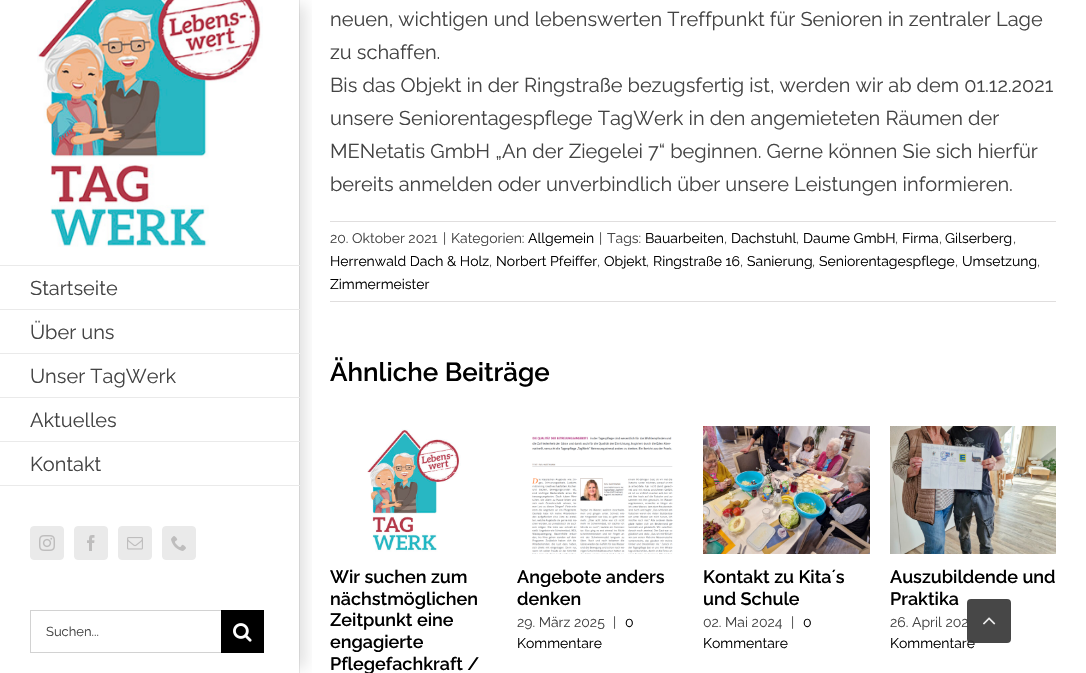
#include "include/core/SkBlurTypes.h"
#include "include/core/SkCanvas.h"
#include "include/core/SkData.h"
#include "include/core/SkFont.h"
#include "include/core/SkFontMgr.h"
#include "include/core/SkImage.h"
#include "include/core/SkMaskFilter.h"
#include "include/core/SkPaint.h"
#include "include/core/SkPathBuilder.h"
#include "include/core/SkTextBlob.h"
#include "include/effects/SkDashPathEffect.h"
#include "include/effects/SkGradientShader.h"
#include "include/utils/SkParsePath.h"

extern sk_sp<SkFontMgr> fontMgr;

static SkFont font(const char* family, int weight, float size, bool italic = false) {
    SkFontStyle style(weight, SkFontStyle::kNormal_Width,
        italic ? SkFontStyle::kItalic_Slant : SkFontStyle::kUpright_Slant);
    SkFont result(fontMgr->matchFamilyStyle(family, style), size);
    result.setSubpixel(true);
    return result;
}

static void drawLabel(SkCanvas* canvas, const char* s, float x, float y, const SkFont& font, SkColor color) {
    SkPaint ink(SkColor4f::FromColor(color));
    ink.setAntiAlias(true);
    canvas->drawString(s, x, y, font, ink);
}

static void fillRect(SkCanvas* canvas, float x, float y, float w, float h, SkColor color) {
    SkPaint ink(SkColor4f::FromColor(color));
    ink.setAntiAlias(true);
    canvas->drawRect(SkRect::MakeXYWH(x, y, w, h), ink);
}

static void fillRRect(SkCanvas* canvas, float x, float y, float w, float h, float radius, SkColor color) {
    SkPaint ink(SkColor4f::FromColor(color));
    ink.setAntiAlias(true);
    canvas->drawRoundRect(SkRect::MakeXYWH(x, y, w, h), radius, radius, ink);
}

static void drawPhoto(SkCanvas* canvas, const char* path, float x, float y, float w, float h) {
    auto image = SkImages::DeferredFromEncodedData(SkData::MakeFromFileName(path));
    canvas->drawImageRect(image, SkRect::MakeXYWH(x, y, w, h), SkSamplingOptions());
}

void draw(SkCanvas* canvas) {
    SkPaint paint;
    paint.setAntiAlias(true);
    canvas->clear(0xFFFFFFFF);
    drawPhoto(canvas, "assets/img1.png", 37, 0, 226, 247);
    fillRect(canvas, 299, 0, 1, 673, 0xFFEAEAEA);
    canvas->save();
    canvas->clipRect(SkRect::MakeXYWH(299, 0, 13, 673));
    paint.setColor(0x24000000);
    paint.setMaskFilter(SkMaskFilter::MakeBlur(kNormal_SkBlurStyle, 7.5f));
    canvas->drawRect(SkRect::MakeXYWH(289, 5, 15, 663), paint);
    paint.setMaskFilter(nullptr);
    canvas->restore();
    fillRect(canvas, 0, 265, 300, 1, 0xFFEAEAEA);
    fillRect(canvas, 0, 309, 300, 1, 0xFFEAEAEA);
    SkFont font1 = font("Raleway", 400, 20);
    drawLabel(canvas, "Startseite", 30, 295, font1, 0xFF444444);
    fillRect(canvas, 0, 353, 300, 1, 0xFFEAEAEA);
    drawLabel(canvas, "Über uns", 30, 339, font1, 0xFF444444);
    fillRect(canvas, 0, 397, 300, 1, 0xFFEAEAEA);
    drawLabel(canvas, "Unser TagWerk", 30, 383, font1, 0xFF444444);
    fillRect(canvas, 0, 441, 300, 1, 0xFFEAEAEA);
    drawLabel(canvas, "Aktuelles", 30, 427, font1, 0xFF444444);
    fillRect(canvas, 0, 485, 300, 1, 0xFFEAEAEA);
    drawLabel(canvas, "Kontakt", 30, 471, font1, 0xFF444444);
    paint.setColor(0xFFEAEAEA);
    canvas->drawRoundRect(SkRect::MakeXYWH(30.5f, 526.5f, 33, 33), 3.5f, 3.5f, paint);
    paint.setStroke(true);
    paint.setStrokeWidth(1);
    canvas->drawRoundRect(SkRect::MakeXYWH(30.5f, 526.5f, 33, 33), 3.5f, 3.5f, paint);
    drawPhoto(canvas, "assets/img2.png", 39, 535, 16, 16);
    paint.setStroke(false);
    canvas->drawRoundRect(SkRect::MakeXYWH(74.5f, 526.5f, 33, 33), 3.5f, 3.5f, paint);
    paint.setStroke(true);
    canvas->drawRoundRect(SkRect::MakeXYWH(74.5f, 526.5f, 33, 33), 3.5f, 3.5f, paint);
    drawPhoto(canvas, "assets/img3.png", 87, 535, 8, 16);
    paint.setStroke(false);
    canvas->drawRoundRect(SkRect::MakeXYWH(118.5f, 526.5f, 33, 33), 3.5f, 3.5f, paint);
    paint.setStroke(true);
    canvas->drawRoundRect(SkRect::MakeXYWH(118.5f, 526.5f, 33, 33), 3.5f, 3.5f, paint);
    drawPhoto(canvas, "assets/img4.png", 127, 537, 16, 13);
    paint.setStroke(false);
    canvas->drawRoundRect(SkRect::MakeXYWH(162.5f, 526.5f, 33, 33), 3.5f, 3.5f, paint);
    paint.setStroke(true);
    canvas->drawRoundRect(SkRect::MakeXYWH(162.5f, 526.5f, 33, 33), 3.5f, 3.5f, paint);
    drawPhoto(canvas, "assets/img5.png", 171, 536, 15, 15);
    fillRect(canvas, 30, 610, 191, 1, 0xFFD2D2D2);
    fillRect(canvas, 30, 652, 191, 1, 0xFFD2D2D2);
    fillRect(canvas, 30, 610, 1, 43, 0xFFD2D2D2);
    SkFont font2 = font("Raleway", 400, 13);
    drawLabel(canvas, "Suchen...", 46, 636, font2, 0xFF444444);
    fillRect(canvas, 221, 610, 43, 43, 0xFF000000);
    drawPhoto(canvas, "assets/img6.png", 233, 623, 19, 19);
    drawLabel(canvas, "neuen, wichtigen und lebenswerten Treffpunkt für Senioren in zentraler Lage", 330, 26, font1, 0xFF444444);
    drawLabel(canvas, "zu schaffen.", 330, 59, font1, 0xFF444444);
    drawLabel(canvas, "Bis das Objekt in der Ringstraße bezugsfertig ist, werden wir ab dem 01.12.2021", 330, 92, font1, 0xFF444444);
    drawLabel(canvas, "unsere Seniorentagespflege TagWerk in den angemieteten Räumen der", 330, 125, font1, 0xFF444444);
    drawLabel(canvas, "MENetatis GmbH „An der Ziegelei 7“ beginnen. Gerne können Sie sich hierfür", 330, 158, font1, 0xFF444444);
    drawLabel(canvas, "bereits anmelden oder unverbindlich über unsere Leistungen informieren.", 330, 191, font1, 0xFF444444);
    fillRect(canvas, 330, 221, 726, 1, 0xFFE0DEDE);
    fillRect(canvas, 330, 301, 726, 1, 0xFFE0DEDE);
    SkFont font3 = font("Raleway", 400, 14);
    drawLabel(canvas, "20. Oktober 2021", 330, 243, font3, 0xFF444444);
    drawLabel(canvas, "|", 443, 243, font3, 0xFF444444);
    drawLabel(canvas, "Kategorien:", 451, 243, font3, 0xFF444444);
    drawLabel(canvas, "Allgemein", 528, 243, font3, 0xFF000000);
    drawLabel(canvas, "|", 599, 243, font3, 0xFF444444);
    drawLabel(canvas, "Tags:", 607, 243, font3, 0xFF444444);
    drawLabel(canvas, "Bauarbeiten", 645, 243, font3, 0xFF000000);
    drawLabel(canvas, ",", 724, 243, font3, 0xFF444444);
    drawLabel(canvas, "Dachstuhl", 731, 243, font3, 0xFF000000);
    drawLabel(canvas, ",", 796, 243, font3, 0xFF444444);
    drawLabel(canvas, "Daume GmbH", 803, 243, font3, 0xFF000000);
    drawLabel(canvas, ",", 895, 243, font3, 0xFF444444);
    drawLabel(canvas, "Firma", 902, 243, font3, 0xFF000000);
    drawLabel(canvas, ",", 939, 243, font3, 0xFF444444);
    drawLabel(canvas, "Gilserberg", 945, 243, font3, 0xFF000000);
    drawLabel(canvas, ",", 1013, 243, font3, 0xFF444444);
    drawLabel(canvas, "Herrenwald Dach & Holz", 330, 266, font3, 0xFF000000);
    drawLabel(canvas, ",", 489, 266, font3, 0xFF444444);
    drawLabel(canvas, "Norbert Pfeiffer", 496, 266, font3, 0xFF000000);
    drawLabel(canvas, ",", 597, 266, font3, 0xFF444444);
    drawLabel(canvas, "Objekt", 604, 266, font3, 0xFF000000);
    drawLabel(canvas, ",", 646, 266, font3, 0xFF444444);
    drawLabel(canvas, "Ringstraße 16", 653, 266, font3, 0xFF000000);
    drawLabel(canvas, ",", 740, 266, font3, 0xFF444444);
    drawLabel(canvas, "Sanierung", 747, 266, font3, 0xFF000000);
    drawLabel(canvas, ",", 812, 266, font3, 0xFF444444);
    drawLabel(canvas, "Seniorentagespflege", 819, 266, font3, 0xFF000000);
    drawLabel(canvas, ",", 955, 266, font3, 0xFF444444);
    drawLabel(canvas, "Umsetzung", 962, 266, font3, 0xFF000000);
    drawLabel(canvas, ",", 1037, 266, font3, 0xFF444444);
    drawLabel(canvas, "Zimmermeister", 330, 289, font3, 0xFF000000);
    SkFont font4 = font("Raleway", 600, 26);
    drawLabel(canvas, "Ähnliche Beiträge", 330, 381, font4, 0xFF000000);
    drawPhoto(canvas, "assets/img7.png", 367, 429, 94, 123);
    SkFont font5 = font("Raleway", 600, 18);
    drawLabel(canvas, "Wir suchen zum", 330, 583, font5, 0xFF000000);
    drawLabel(canvas, "nächstmöglichen", 330, 605, font5, 0xFF000000);
    drawLabel(canvas, "Zeitpunkt eine", 330, 626, font5, 0xFF000000);
    drawLabel(canvas, "engagierte", 330, 648, font5, 0xFF000000);
    drawLabel(canvas, "Pflegefachkraft /", 330, 670, font5, 0xFF000000);
    drawPhoto(canvas, "assets/img8.png", 532, 436, 141, 118);
    drawLabel(canvas, "Angebote anders", 517, 583, font5, 0xFF000000);
    drawLabel(canvas, "denken", 517, 605, font5, 0xFF000000);
    drawLabel(canvas, "29. März 2025", 517, 627, font3, 0xFF444444);
    drawLabel(canvas, "|", 613, 627, font3, 0xFF444444);
    drawLabel(canvas, "0", 625, 627, font3, 0xFF000000);
    drawLabel(canvas, "Kommentare", 517, 648, font3, 0xFF000000);
    drawPhoto(canvas, "assets/img9.png", 703, 426, 167, 128);
    drawLabel(canvas, "Kontakt zu Kita´s", 703, 583, font5, 0xFF000000);
    drawLabel(canvas, "und Schule", 703, 605, font5, 0xFF000000);
    drawLabel(canvas, "02. Mai 2024", 703, 627, font3, 0xFF444444);
    drawLabel(canvas, "|", 791, 627, font3, 0xFF444444);
    drawLabel(canvas, "0", 803, 627, font3, 0xFF000000);
    drawLabel(canvas, "Kommentare", 703, 648, font3, 0xFF000000);
    drawPhoto(canvas, "assets/img10.png", 890, 426, 166, 128);
    drawLabel(canvas, "Auszubildende und", 890, 583, font5, 0xFF000000);
    drawLabel(canvas, "Praktika", 890, 605, font5, 0xFF000000);
    drawLabel(canvas, "26. April 202", 890, 627, font3, 0xFF444444);
    drawLabel(canvas, "Kommentare", 890, 648, font3, 0xFF000000);
    fillRRect(canvas, 967, 599, 44, 44, 4, 0xE6333333);
    drawPhoto(canvas, "assets/img11.png", 983, 617, 13, 8);
}
